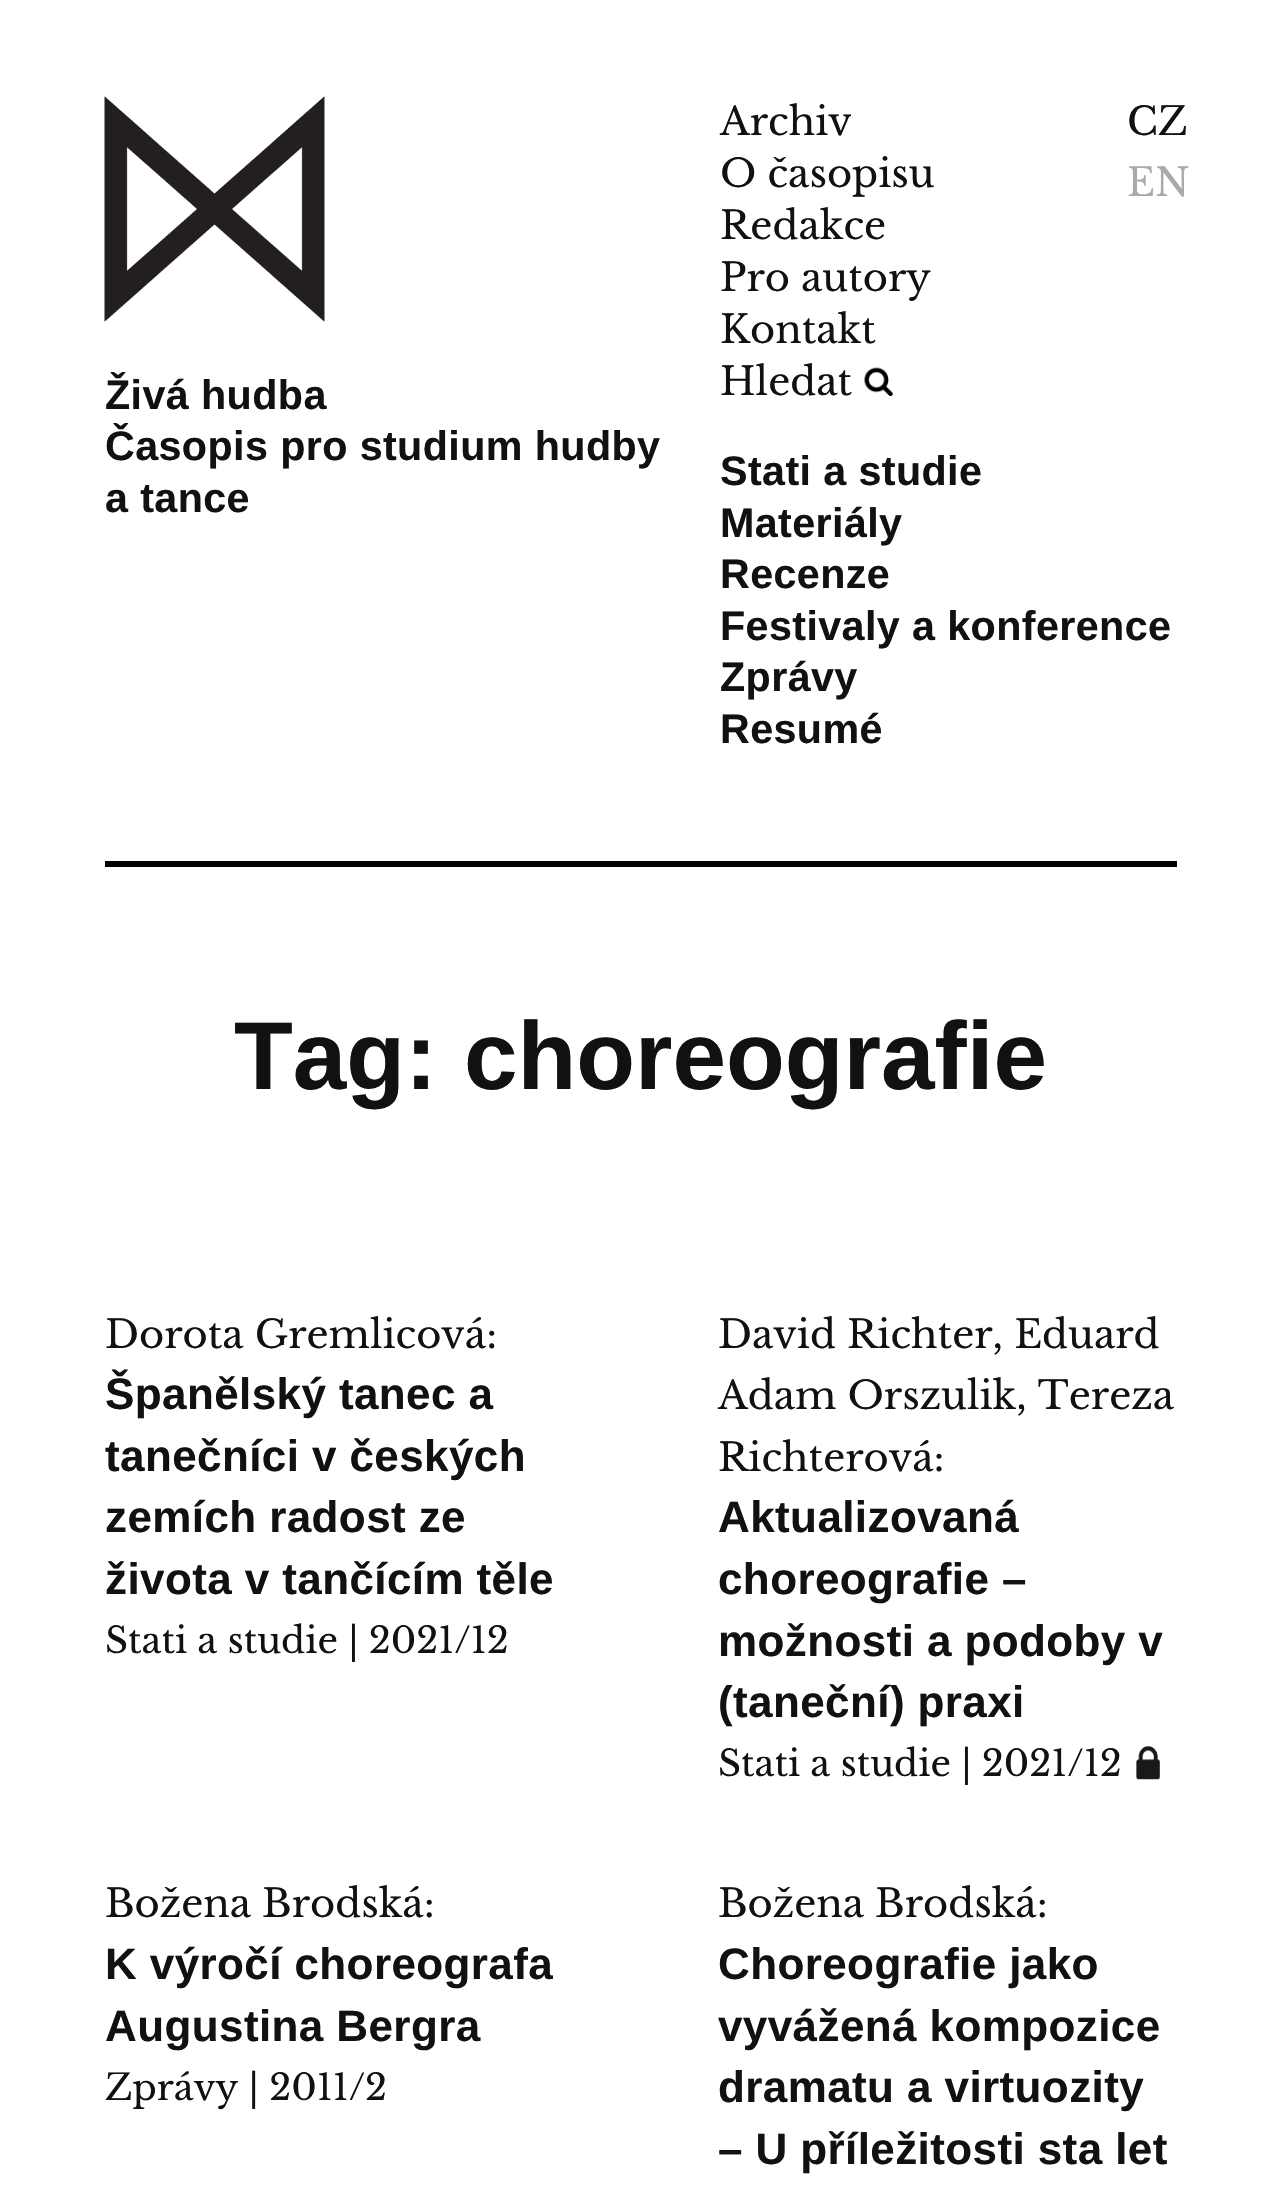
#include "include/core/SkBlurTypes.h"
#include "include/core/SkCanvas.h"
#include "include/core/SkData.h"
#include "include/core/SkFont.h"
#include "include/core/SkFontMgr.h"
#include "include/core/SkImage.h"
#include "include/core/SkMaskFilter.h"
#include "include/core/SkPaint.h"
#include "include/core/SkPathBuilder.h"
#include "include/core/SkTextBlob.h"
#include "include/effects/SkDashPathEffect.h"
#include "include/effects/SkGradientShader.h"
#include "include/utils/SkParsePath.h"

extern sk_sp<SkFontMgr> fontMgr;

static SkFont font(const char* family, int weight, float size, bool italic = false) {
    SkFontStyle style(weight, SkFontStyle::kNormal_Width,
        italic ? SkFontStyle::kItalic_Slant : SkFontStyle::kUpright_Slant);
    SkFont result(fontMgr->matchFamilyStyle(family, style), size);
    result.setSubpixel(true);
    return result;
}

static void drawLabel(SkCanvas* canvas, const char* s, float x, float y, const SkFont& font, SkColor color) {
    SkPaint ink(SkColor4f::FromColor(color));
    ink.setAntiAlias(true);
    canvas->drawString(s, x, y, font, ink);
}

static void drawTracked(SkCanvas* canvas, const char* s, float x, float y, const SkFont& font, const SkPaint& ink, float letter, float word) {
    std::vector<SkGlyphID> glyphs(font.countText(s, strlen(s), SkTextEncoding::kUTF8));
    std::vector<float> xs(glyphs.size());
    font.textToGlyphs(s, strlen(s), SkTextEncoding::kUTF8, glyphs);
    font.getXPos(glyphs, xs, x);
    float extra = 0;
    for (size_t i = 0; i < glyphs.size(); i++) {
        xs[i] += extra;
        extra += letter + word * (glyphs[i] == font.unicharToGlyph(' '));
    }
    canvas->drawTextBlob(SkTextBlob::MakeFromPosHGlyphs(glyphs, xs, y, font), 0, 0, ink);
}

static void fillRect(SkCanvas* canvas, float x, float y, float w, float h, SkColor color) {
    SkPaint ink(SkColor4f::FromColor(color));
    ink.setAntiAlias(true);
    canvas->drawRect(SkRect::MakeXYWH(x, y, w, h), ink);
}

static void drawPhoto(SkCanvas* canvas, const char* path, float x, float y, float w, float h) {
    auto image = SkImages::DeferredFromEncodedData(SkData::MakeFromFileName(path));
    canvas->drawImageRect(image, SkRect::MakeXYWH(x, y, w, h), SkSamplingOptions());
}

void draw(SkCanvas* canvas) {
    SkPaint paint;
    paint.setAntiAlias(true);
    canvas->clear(0xFFFFFFFF);
    fillRect(canvas, 105, 861, 1072, 6, 0xFF000000);
    drawPhoto(canvas, "assets/img1.png", 104, 96, 221, 226);
    SkFont font1 = font("Arimo", 700, 41.25f);
    paint.setColor(0xFF111111);
    drawTracked(canvas, "Živá hudba", 105, 409, font1, paint, 0.4f, 0);
    drawTracked(canvas, "Časopis pro studium hudby", 105, 460, font1, paint, 0.4f, 0);
    drawTracked(canvas, "a tance", 105, 512, font1, paint, 0.4f, 0);
    SkFont font2 = font("Libre Baskerville", 400, 38.5f);
    drawLabel(canvas, "Archiv", 720, 135, font2, 0xFF111111);
    drawLabel(canvas, "O časopisu", 720, 187, font2, 0xFF111111);
    drawLabel(canvas, "Redakce", 720, 239, font2, 0xFF111111);
    drawLabel(canvas, "Pro autory", 720, 291, font2, 0xFF111111);
    drawLabel(canvas, "Kontakt", 720, 343, font2, 0xFF111111);
    drawLabel(canvas, "Hledat", 720, 395, font2, 0xFF111111);
    drawPhoto(canvas, "assets/img2.png", 864, 367, 29, 29);
    drawTracked(canvas, "Stati a studie", 720, 485, font1, paint, 0.4f, 0);
    drawTracked(canvas, "Materiály", 720, 537, font1, paint, 0.4f, 0);
    drawTracked(canvas, "Recenze", 720, 588, font1, paint, 0.4f, 0);
    drawTracked(canvas, "Festivaly a konference", 720, 640, font1, paint, 0.4f, 0);
    drawTracked(canvas, "Zprávy", 720, 691, font1, paint, 0.4f, 0);
    drawTracked(canvas, "Resumé", 720, 743, font1, paint, 0.4f, 0);
    drawLabel(canvas, "CZ", 1127, 135, font2, 0xFF111111);
    drawLabel(canvas, "EN", 1127, 196, font2, 0xFFAAAAAA);
    SkFont font3 = font("Arimo", 700, 96.25f);
    drawLabel(canvas, "Tag: choreografie", 234, 1089, font3, 0xFF111111);
    drawLabel(canvas, "Dorota Gremlicová:", 105, 1348, font2, 0xFF111111);
    SkFont font4 = font("Arimo", 700, 44);
    drawTracked(canvas, "Španělský tanec a", 105, 1409, font4, paint, 0.4f, 0);
    drawTracked(canvas, "tanečníci v českých", 105, 1471, font4, paint, 0.4f, 0);
    drawTracked(canvas, "zemích radost ze", 105, 1532, font4, paint, 0.4f, 0);
    drawTracked(canvas, "života v tančícím těle", 105, 1594, font4, paint, 0.4f, 0);
    SkFont font5 = font("Libre Baskerville", 400, 35.75f);
    drawLabel(canvas, "Stati a studie | 2021/12", 105, 1653, font5, 0xFF111111);
    drawLabel(canvas, "David Richter, Eduard", 718, 1348, font2, 0xFF111111);
    drawLabel(canvas, "Adam Orszulik, Tereza", 718, 1409, font2, 0xFF111111);
    drawLabel(canvas, "Richterová:", 718, 1471, font2, 0xFF111111);
    drawTracked(canvas, "Aktualizovaná", 718, 1532, font4, paint, 0.4f, 0);
    drawTracked(canvas, "choreografie –", 718, 1594, font4, paint, 0.4f, 0);
    drawTracked(canvas, "možnosti a podoby v", 718, 1656, font4, paint, 0.4f, 0);
    drawTracked(canvas, "(taneční) praxi", 718, 1717, font4, paint, 0.4f, 0);
    drawLabel(canvas, "Stati a studie | 2021/12", 718, 1776, font5, 0xFF111111);
    drawPhoto(canvas, "assets/img3.png", 1136, 1746, 24, 34);
    drawLabel(canvas, "Božena Brodská:", 105, 1917, font2, 0xFF111111);
    drawTracked(canvas, "K výročí choreografa", 105, 1979, font4, paint, 0.4f, 0);
    drawTracked(canvas, "Augustina Bergra", 105, 2041, font4, paint, 0.4f, 0);
    drawLabel(canvas, "Zprávy | 2011/2", 105, 2100, font5, 0xFF111111);
    drawLabel(canvas, "Božena Brodská:", 718, 1917, font2, 0xFF111111);
    drawTracked(canvas, "Choreografie jako", 718, 1979, font4, paint, 0.4f, 0);
    drawTracked(canvas, "vyvážená kompozice", 718, 2041, font4, paint, 0.4f, 0);
    drawTracked(canvas, "dramatu a virtuozity", 718, 2102, font4, paint, 0.4f, 0);
    drawTracked(canvas, "– U příležitosti sta let", 718, 2164, font4, paint, 0.4f, 0);
}
